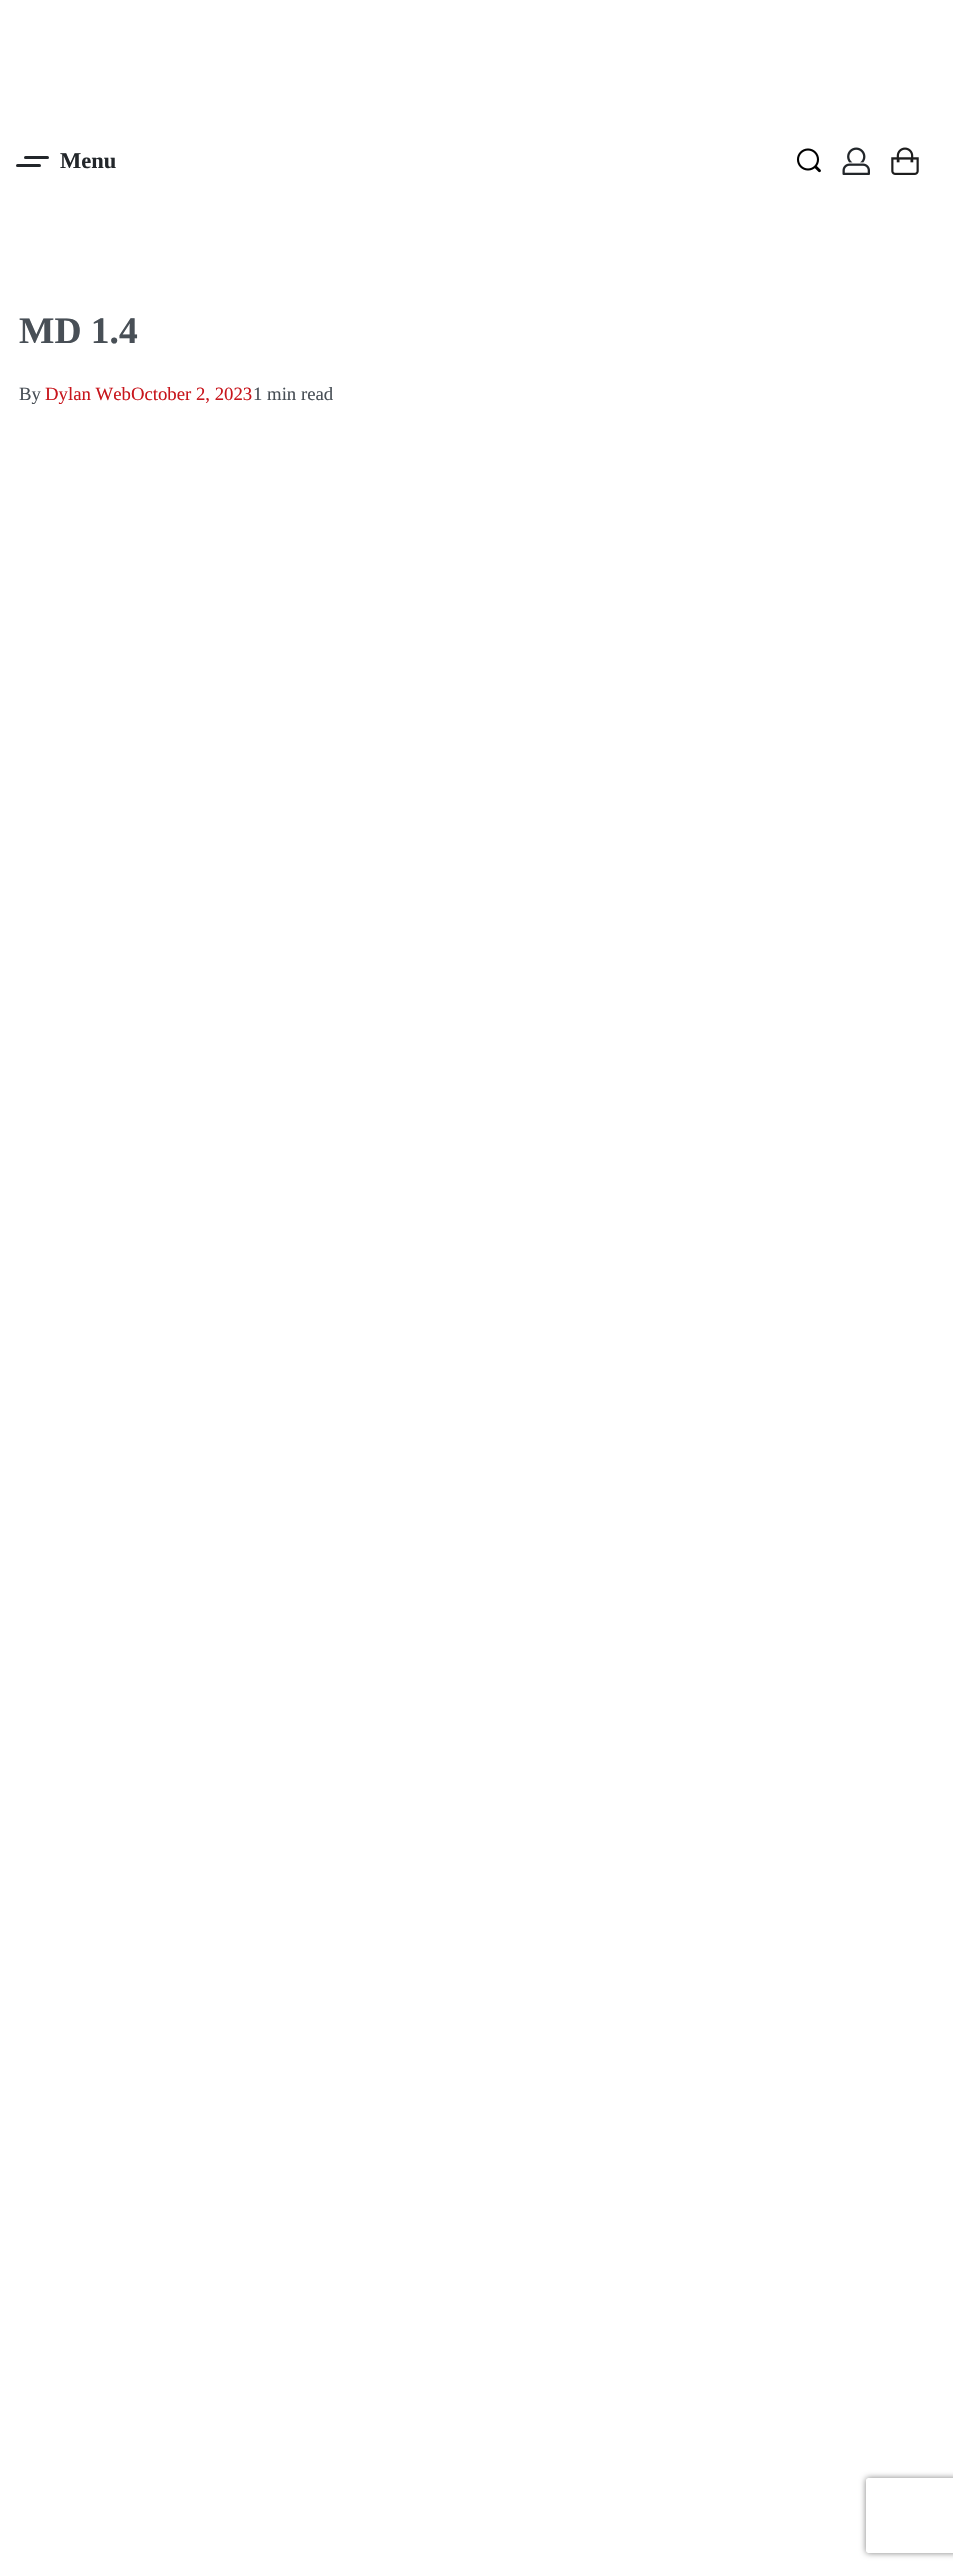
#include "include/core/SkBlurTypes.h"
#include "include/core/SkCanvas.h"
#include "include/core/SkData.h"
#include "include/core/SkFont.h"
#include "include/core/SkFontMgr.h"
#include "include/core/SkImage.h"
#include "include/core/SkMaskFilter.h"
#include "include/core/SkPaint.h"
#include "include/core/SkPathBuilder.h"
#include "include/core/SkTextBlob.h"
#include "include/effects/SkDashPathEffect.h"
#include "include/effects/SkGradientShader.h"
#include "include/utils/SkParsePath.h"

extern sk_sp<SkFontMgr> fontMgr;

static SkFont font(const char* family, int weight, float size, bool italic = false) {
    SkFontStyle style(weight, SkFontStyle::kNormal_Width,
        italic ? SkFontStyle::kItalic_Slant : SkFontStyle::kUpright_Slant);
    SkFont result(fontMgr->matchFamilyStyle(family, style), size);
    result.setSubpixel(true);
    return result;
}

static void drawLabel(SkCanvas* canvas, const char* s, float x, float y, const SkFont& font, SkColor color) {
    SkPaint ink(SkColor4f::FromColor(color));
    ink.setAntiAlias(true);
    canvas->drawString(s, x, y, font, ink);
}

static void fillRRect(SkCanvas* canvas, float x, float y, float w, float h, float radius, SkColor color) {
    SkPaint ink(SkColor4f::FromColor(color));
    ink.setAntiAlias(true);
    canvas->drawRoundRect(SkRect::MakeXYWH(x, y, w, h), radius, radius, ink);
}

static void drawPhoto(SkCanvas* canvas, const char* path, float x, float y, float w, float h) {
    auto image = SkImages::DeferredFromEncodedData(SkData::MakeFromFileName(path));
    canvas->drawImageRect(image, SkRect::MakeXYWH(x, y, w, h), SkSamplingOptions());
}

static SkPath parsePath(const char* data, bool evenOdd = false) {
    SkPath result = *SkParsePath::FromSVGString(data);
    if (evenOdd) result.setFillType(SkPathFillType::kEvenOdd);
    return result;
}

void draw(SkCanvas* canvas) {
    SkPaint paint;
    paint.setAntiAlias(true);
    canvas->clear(0xFFFFFFFF);
    fillRRect(canvas, 24, 156, 25, 3, 1.5f, 0xFF22262A);
    fillRRect(canvas, 16, 164, 25, 3, 1.5f, 0xFF22262A);
    SkFont font1 = font("Liberation Serif", 700, 22.5f);
    drawLabel(canvas, "Menu", 60, 168, font1, 0xFF22262A);
    drawPhoto(canvas, "assets/img1.png", 796, 148, 25, 25);
    drawPhoto(canvas, "assets/img2.png", 842, 147, 28, 28);
    drawPhoto(canvas, "assets/img3.png", 891, 147, 28, 28);
    SkFont font2 = font("Liberation Serif", 700, 37.5f);
    drawLabel(canvas, "MD 1.4", 19, 343, font2, 0xFF484F56);
    SkFont font3 = font("Liberation Serif", 400, 18.75f);
    drawLabel(canvas, "By", 19, 400, font3, 0xFF484F56);
    drawLabel(canvas, "Dylan WebOctober 2, 2023", 45, 400, font3, 0xFFC8161D);
    drawLabel(canvas, "1 min read", 253, 400, font3, 0xFF484F56);
    canvas->save();
    canvas->clipPath(parsePath("M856 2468H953V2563H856ZM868.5 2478H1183.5C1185 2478 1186 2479 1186 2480.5V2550.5C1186 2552 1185 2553 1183.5 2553H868.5C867 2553 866 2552 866 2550.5V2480.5C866 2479 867 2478 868.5 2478Z", true), true);
    paint.setColor(0xFF808080);
    paint.setMaskFilter(SkMaskFilter::MakeBlur(kNormal_SkBlurStyle, 3));
    canvas->drawRoundRect(SkRect::MakeXYWH(866, 2478, 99, 75), 2.5f, 2.5f, paint);
    paint.setMaskFilter(nullptr);
    canvas->restore();
}
